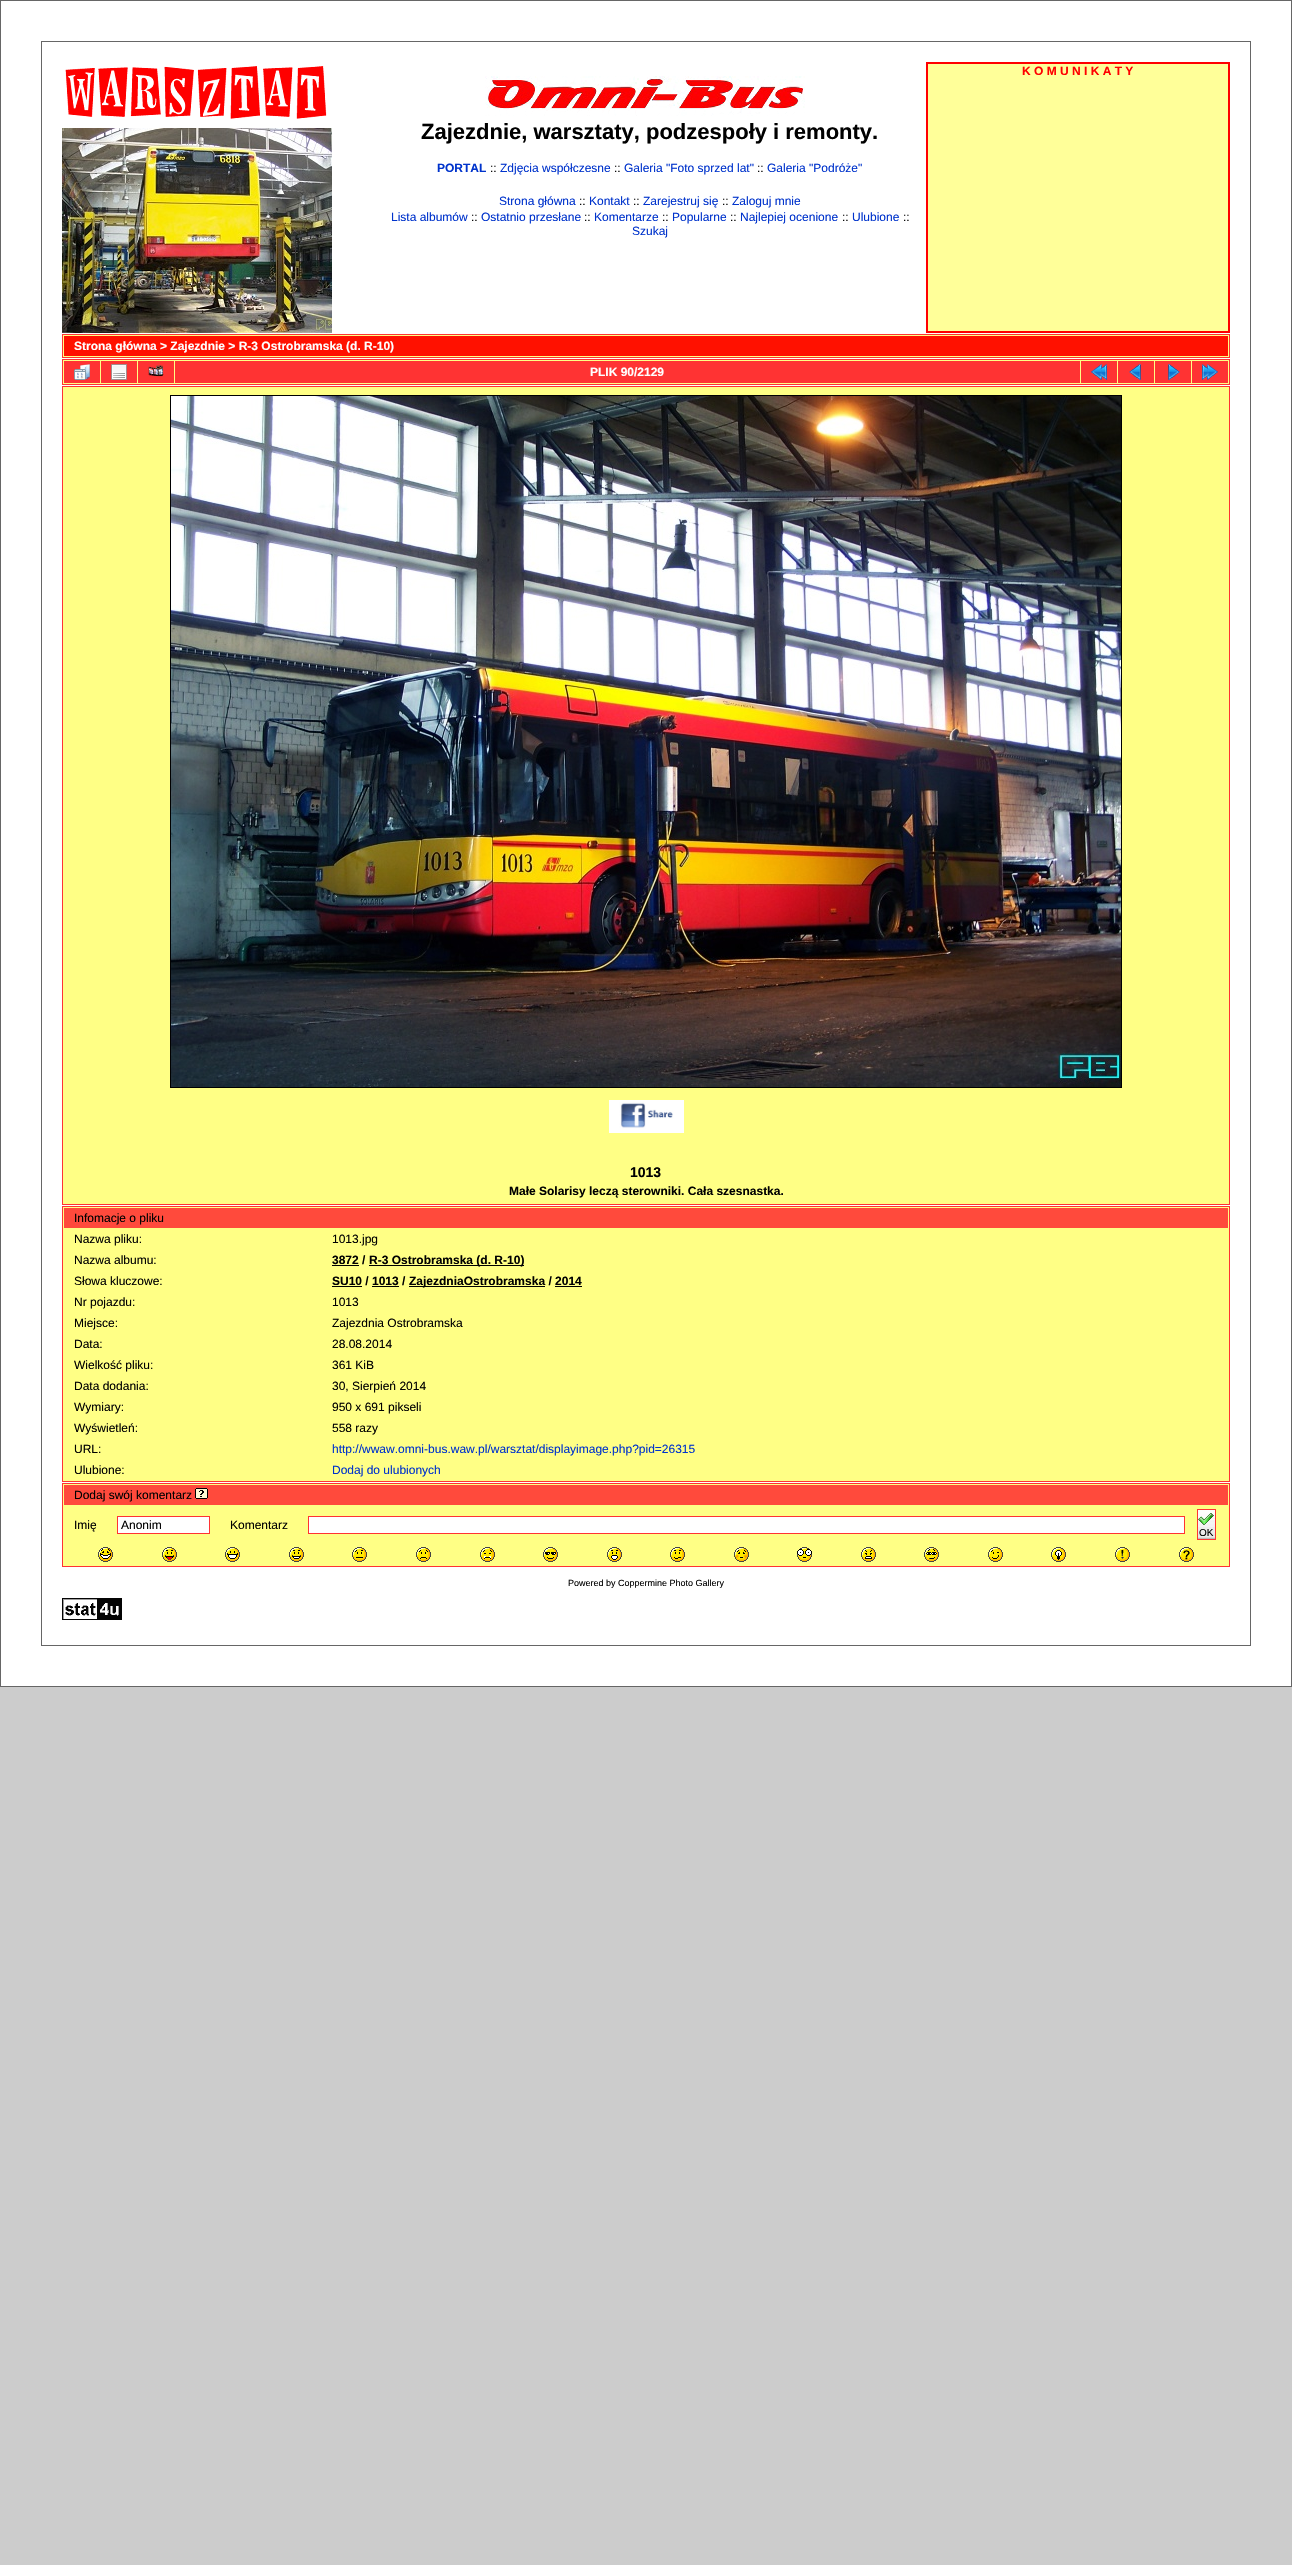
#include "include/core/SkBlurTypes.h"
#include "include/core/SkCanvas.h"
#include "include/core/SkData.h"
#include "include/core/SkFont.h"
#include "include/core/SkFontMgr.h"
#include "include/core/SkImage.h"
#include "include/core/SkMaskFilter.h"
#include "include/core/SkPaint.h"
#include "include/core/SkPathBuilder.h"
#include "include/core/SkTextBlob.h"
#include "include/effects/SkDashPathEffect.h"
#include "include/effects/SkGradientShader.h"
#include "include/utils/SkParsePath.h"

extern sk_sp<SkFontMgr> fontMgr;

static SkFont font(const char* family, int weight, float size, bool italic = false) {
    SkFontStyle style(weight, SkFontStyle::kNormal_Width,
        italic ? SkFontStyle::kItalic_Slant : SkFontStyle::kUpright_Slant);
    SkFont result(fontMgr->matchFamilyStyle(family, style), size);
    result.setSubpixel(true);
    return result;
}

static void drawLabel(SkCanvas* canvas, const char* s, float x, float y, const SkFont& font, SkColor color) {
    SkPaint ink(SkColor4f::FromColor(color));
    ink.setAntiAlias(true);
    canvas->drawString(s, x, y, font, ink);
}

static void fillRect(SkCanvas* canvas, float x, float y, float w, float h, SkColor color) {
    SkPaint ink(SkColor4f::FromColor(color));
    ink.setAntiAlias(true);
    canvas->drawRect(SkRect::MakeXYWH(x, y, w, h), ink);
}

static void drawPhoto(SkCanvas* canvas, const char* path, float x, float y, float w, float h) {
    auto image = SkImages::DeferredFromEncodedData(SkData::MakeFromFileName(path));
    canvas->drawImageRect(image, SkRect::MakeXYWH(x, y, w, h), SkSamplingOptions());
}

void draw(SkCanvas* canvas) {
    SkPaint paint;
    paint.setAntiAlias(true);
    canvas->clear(0xFFCCCCCC);
    paint.setColor(0xFFFFFFFF);
    canvas->drawRect(SkRect::MakeXYWH(0.5f, 0.5f, 1291, 1686), paint);
    paint.setStroke(true);
    paint.setStrokeWidth(1);
    paint.setColor(0xFF666666);
    canvas->drawRect(SkRect::MakeXYWH(0.5f, 0.5f, 1291, 1686), paint);
    canvas->drawRect(SkRect::MakeXYWH(41.5f, 41.5f, 1209, 1604), paint);
    drawPhoto(canvas, "assets/img1.png", 65, 66, 262, 53);
    drawPhoto(canvas, "assets/img2.png", 62, 128, 270, 205);
    paint.setStroke(false);
    paint.setColor(0xFFFFFF99);
    canvas->drawRect(SkRect::MakeXYWH(927, 63, 302, 269), paint);
    paint.setStroke(true);
    paint.setStrokeWidth(2);
    paint.setColor(0xFFFF0000);
    canvas->drawRect(SkRect::MakeXYWH(927, 63, 302, 269), paint);
    SkFont font1 = font("Liberation Sans", 700, 12);
    drawLabel(canvas, "K O M U N I K A T Y", 1022, 75, font1, 0xFFFF0000);
    drawPhoto(canvas, "assets/img3.png", 485, 76, 320, 40);
    SkFont font2 = font("Liberation Sans", 700, 22);
    drawLabel(canvas, "Zajezdnie, warsztaty, podzespoły i remonty.", 421, 139, font2, 0xFF000000);
    drawLabel(canvas, "PORTAL", 437, 172, font1, 0xFF0033CC);
    SkFont font3 = font("Liberation Sans", 400, 12);
    drawLabel(canvas, "::", 490, 172, font3, 0xFF000000);
    drawLabel(canvas, "Zdjęcia współczesne", 500, 172, font3, 0xFF0033CC);
    drawLabel(canvas, "::", 614, 172, font3, 0xFF000000);
    drawLabel(canvas, "Galeria \"Foto sprzed lat\"", 624, 172, font3, 0xFF0033CC);
    drawLabel(canvas, "::", 757, 172, font3, 0xFF000000);
    drawLabel(canvas, "Galeria \"Podróże\"", 767, 172, font3, 0xFF0033CC);
    drawLabel(canvas, "Strona główna", 499, 205, font3, 0xFF0033CC);
    drawLabel(canvas, "::", 579, 205, font3, 0xFF000000);
    drawLabel(canvas, "Kontakt", 589, 205, font3, 0xFF0033CC);
    drawLabel(canvas, "::", 633, 205, font3, 0xFF000000);
    drawLabel(canvas, "Zarejestruj się", 643, 205, font3, 0xFF0033CC);
    drawLabel(canvas, "::", 722, 205, font3, 0xFF000000);
    drawLabel(canvas, "Zaloguj mnie", 732, 205, font3, 0xFF0033CC);
    drawLabel(canvas, "Lista albumów", 391, 221, font3, 0xFF0033CC);
    drawLabel(canvas, "::", 471, 221, font3, 0xFF000000);
    drawLabel(canvas, "Ostatnio przesłane", 481, 221, font3, 0xFF0033CC);
    drawLabel(canvas, "::", 584, 221, font3, 0xFF000000);
    drawLabel(canvas, "Komentarze", 594, 221, font3, 0xFF0033CC);
    drawLabel(canvas, "::", 662, 221, font3, 0xFF000000);
    drawLabel(canvas, "Popularne", 672, 221, font3, 0xFF0033CC);
    drawLabel(canvas, "::", 730, 221, font3, 0xFF000000);
    drawLabel(canvas, "Najlepiej ocenione", 740, 221, font3, 0xFF0033CC);
    drawLabel(canvas, "::", 842, 221, font3, 0xFF000000);
    drawLabel(canvas, "Ulubione", 852, 221, font3, 0xFF0033CC);
    drawLabel(canvas, "::", 903, 221, font3, 0xFF000000);
    drawLabel(canvas, "Szukaj", 632, 235, font3, 0xFF0033CC);
    paint.setStroke(false);
    paint.setColor(0xFFFFFF85);
    canvas->drawRect(SkRect::MakeXYWH(62.5f, 334.5f, 1167, 23), paint);
    paint.setStroke(true);
    paint.setStrokeWidth(1);
    paint.setColor(0xFFFF3333);
    canvas->drawRect(SkRect::MakeXYWH(62.5f, 334.5f, 1167, 23), paint);
    fillRect(canvas, 64, 336, 1164, 20, 0xFFFF1100);
    drawLabel(canvas, "Strona główna > Zajezdnie > R-3 Ostrobramska (d. R-10)", 74, 350, font1, 0xFFFFFFFF);
    paint.setStroke(false);
    paint.setColor(0xFFFFFF85);
    canvas->drawRect(SkRect::MakeXYWH(62.5f, 359.5f, 1167, 25), paint);
    paint.setStroke(true);
    paint.setColor(0xFFFF3333);
    canvas->drawRect(SkRect::MakeXYWH(62.5f, 359.5f, 1167, 25), paint);
    fillRect(canvas, 64, 361, 36, 22, 0xFFFF3333);
    drawPhoto(canvas, "assets/img4.png", 74, 364, 16, 16);
    fillRect(canvas, 101, 361, 36, 22, 0xFFFF3333);
    drawPhoto(canvas, "assets/img5.png", 111, 364, 16, 16);
    fillRect(canvas, 138, 361, 36, 22, 0xFFFF3333);
    drawPhoto(canvas, "assets/img6.png", 148, 365, 16, 12);
    fillRect(canvas, 175, 361, 905, 22, 0xFFFF3333);
    drawLabel(canvas, "PLIK 90/2129", 590, 376, font1, 0xFFFFFFFF);
    fillRect(canvas, 1081, 361, 36, 22, 0xFFFF3333);
    drawPhoto(canvas, "assets/img7.png", 1091, 364, 16, 16);
    fillRect(canvas, 1118, 361, 36, 22, 0xFFFF3333);
    drawPhoto(canvas, "assets/img8.png", 1129, 364, 12, 16);
    fillRect(canvas, 1155, 361, 36, 22, 0xFFFF3333);
    drawPhoto(canvas, "assets/img9.png", 1168, 364, 12, 16);
    fillRect(canvas, 1192, 361, 36, 22, 0xFFFF3333);
    drawPhoto(canvas, "assets/img10.png", 1202, 364, 16, 16);
    paint.setStroke(false);
    paint.setColor(0xFFFFFF85);
    canvas->drawRect(SkRect::MakeXYWH(62.5f, 386.5f, 1167, 818), paint);
    paint.setStroke(true);
    paint.setColor(0xFFFF3333);
    canvas->drawRect(SkRect::MakeXYWH(62.5f, 386.5f, 1167, 818), paint);
    paint.setColor(0xFF000000);
    canvas->drawRect(SkRect::MakeXYWH(170.5f, 395.5f, 951, 692), paint);
    drawPhoto(canvas, "assets/img11.png", 171, 396, 950, 691);
    drawPhoto(canvas, "assets/img12.png", 609, 1100, 75, 33);
    SkFont font4 = font("Liberation Sans", 700, 14);
    drawLabel(canvas, "1013", 630, 1177, font4, 0xFF000000);
    drawLabel(canvas, "Małe Solarisy leczą sterowniki. Cała szesnastka.", 509, 1195, font1, 0xFF000000);
    paint.setStroke(false);
    paint.setColor(0xFFFFFF85);
    canvas->drawRect(SkRect::MakeXYWH(62.5f, 1206.5f, 1167, 275), paint);
    paint.setStroke(true);
    paint.setColor(0xFFFF3333);
    canvas->drawRect(SkRect::MakeXYWH(62.5f, 1206.5f, 1167, 275), paint);
    fillRect(canvas, 64, 1208, 1164, 20, 0xFFFF4A3C);
    drawLabel(canvas, "Infomacje o pliku", 74, 1222, font3, 0xFF000000);
    drawLabel(canvas, "Nazwa pliku:", 74, 1243, font3, 0xFF000000);
    drawLabel(canvas, "1013.jpg", 332, 1243, font3, 0xFF000000);
    drawLabel(canvas, "Nazwa albumu:", 74, 1264, font3, 0xFF000000);
    drawLabel(canvas, "3872 /", 332, 1264, font1, 0xFF000000);
    fillRect(canvas, 332, 1265, 27, 1, 0xFF000000);
    fillRect(canvas, 369, 1265, 155, 1, 0xFF000000);
    drawLabel(canvas, "R-3 Ostrobramska (d. R-10)", 369, 1264, font1, 0xFF000000);
    drawLabel(canvas, "Słowa kluczowe:", 74, 1285, font3, 0xFF000000);
    drawLabel(canvas, "SU10 / 1013 /", 332, 1285, font1, 0xFF000000);
    fillRect(canvas, 332, 1286, 30, 1, 0xFF000000);
    fillRect(canvas, 372, 1286, 27, 1, 0xFF000000);
    fillRect(canvas, 409, 1286, 136, 1, 0xFF000000);
    drawLabel(canvas, "ZajezdniaOstrobramska / 2014", 409, 1285, font1, 0xFF000000);
    fillRect(canvas, 555, 1286, 27, 1, 0xFF000000);
    drawLabel(canvas, "Nr pojazdu:", 74, 1306, font3, 0xFF000000);
    drawLabel(canvas, "1013", 332, 1306, font3, 0xFF000000);
    drawLabel(canvas, "Miejsce:", 74, 1327, font3, 0xFF000000);
    drawLabel(canvas, "Zajezdnia Ostrobramska", 332, 1327, font3, 0xFF000000);
    drawLabel(canvas, "Data:", 74, 1348, font3, 0xFF000000);
    drawLabel(canvas, "28.08.2014", 332, 1348, font3, 0xFF000000);
    drawLabel(canvas, "Wielkość pliku:", 74, 1369, font3, 0xFF000000);
    drawLabel(canvas, "361 KiB", 332, 1369, font3, 0xFF000000);
    drawLabel(canvas, "Data dodania:", 74, 1390, font3, 0xFF000000);
    drawLabel(canvas, "30, Sierpień 2014", 332, 1390, font3, 0xFF000000);
    drawLabel(canvas, "Wymiary:", 74, 1411, font3, 0xFF000000);
    drawLabel(canvas, "950 x 691 pikseli", 332, 1411, font3, 0xFF000000);
    drawLabel(canvas, "Wyświetleń:", 74, 1432, font3, 0xFF000000);
    drawLabel(canvas, "558 razy", 332, 1432, font3, 0xFF000000);
    drawLabel(canvas, "URL:", 74, 1453, font3, 0xFF000000);
    drawLabel(canvas, "http://wwaw.omni-bus.waw.pl/warsztat/displayimage.php?pid=26315", 332, 1453, font3, 0xFF0033CC);
    drawLabel(canvas, "Ulubione:", 74, 1474, font3, 0xFF000000);
    drawLabel(canvas, "Dodaj do ulubionych", 332, 1474, font3, 0xFF0033CC);
    paint.setStroke(false);
    paint.setColor(0xFFFFFF85);
    canvas->drawRect(SkRect::MakeXYWH(62.5f, 1483.5f, 1167, 83), paint);
    paint.setStroke(true);
    paint.setColor(0xFFFF3333);
    canvas->drawRect(SkRect::MakeXYWH(62.5f, 1483.5f, 1167, 83), paint);
    fillRect(canvas, 64, 1485, 1164, 20, 0xFFFF4A3C);
    drawLabel(canvas, "Dodaj swój komentarz", 74, 1499, font3, 0xFF000000);
    drawPhoto(canvas, "assets/img13.png", 195, 1488, 13, 11);
    drawLabel(canvas, "Imię", 74, 1529, font3, 0xFF000000);
    paint.setStroke(false);
    paint.setColor(0xFFFFFFFF);
    canvas->drawRect(SkRect::MakeXYWH(117.5f, 1516.5f, 92, 17), paint);
    paint.setStroke(true);
    paint.setColor(0xFFFF3333);
    canvas->drawRect(SkRect::MakeXYWH(117.5f, 1516.5f, 92, 17), paint);
    drawLabel(canvas, "Anonim", 121, 1529, font3, 0xFF000000);
    drawLabel(canvas, "Komentarz", 230, 1529, font3, 0xFF000000);
    paint.setStroke(false);
    paint.setColor(0xFFFFFFFF);
    canvas->drawRect(SkRect::MakeXYWH(308.5f, 1516.5f, 876, 17), paint);
    paint.setStroke(true);
    paint.setColor(0xFFFF3333);
    canvas->drawRect(SkRect::MakeXYWH(308.5f, 1516.5f, 876, 17), paint);
    drawPhoto(canvas, "assets/img14.png", 1198, 1510, 17, 29);
    canvas->drawRect(SkRect::MakeXYWH(1197.5f, 1509.5f, 18, 30), paint);
    drawPhoto(canvas, "assets/img15.png", 1198, 1513, 16, 12);
    SkFont font5 = font("Liberation Sans", 400, 10);
    drawLabel(canvas, "OK", 1199, 1536, font5, 0xFF000000);
    drawPhoto(canvas, "assets/img16.png", 98, 1547, 15, 15);
    drawPhoto(canvas, "assets/img17.png", 162, 1547, 15, 15);
    drawPhoto(canvas, "assets/img18.png", 225, 1547, 15, 15);
    drawPhoto(canvas, "assets/img19.png", 289, 1547, 15, 15);
    drawPhoto(canvas, "assets/img20.png", 352, 1547, 15, 15);
    drawPhoto(canvas, "assets/img21.png", 416, 1547, 15, 15);
    drawPhoto(canvas, "assets/img22.png", 480, 1547, 15, 15);
    drawPhoto(canvas, "assets/img23.png", 543, 1547, 15, 15);
    drawPhoto(canvas, "assets/img24.png", 607, 1547, 15, 15);
    drawPhoto(canvas, "assets/img25.png", 670, 1547, 15, 15);
    drawPhoto(canvas, "assets/img26.png", 734, 1547, 15, 15);
    drawPhoto(canvas, "assets/img27.png", 797, 1547, 15, 15);
    drawPhoto(canvas, "assets/img28.png", 861, 1547, 15, 15);
    drawPhoto(canvas, "assets/img29.png", 924, 1547, 15, 15);
    drawPhoto(canvas, "assets/img30.png", 988, 1547, 15, 15);
    drawPhoto(canvas, "assets/img31.png", 1051, 1547, 15, 15);
    drawPhoto(canvas, "assets/img32.png", 1115, 1547, 15, 15);
    drawPhoto(canvas, "assets/img33.png", 1179, 1547, 15, 15);
    SkFont font6 = font("Liberation Sans", 400, 9);
    drawLabel(canvas, "Powered by Coppermine Photo Gallery", 568, 1586, font6, 0xFF000000);
    drawPhoto(canvas, "assets/img34.png", 62, 1598, 60, 22);
}
